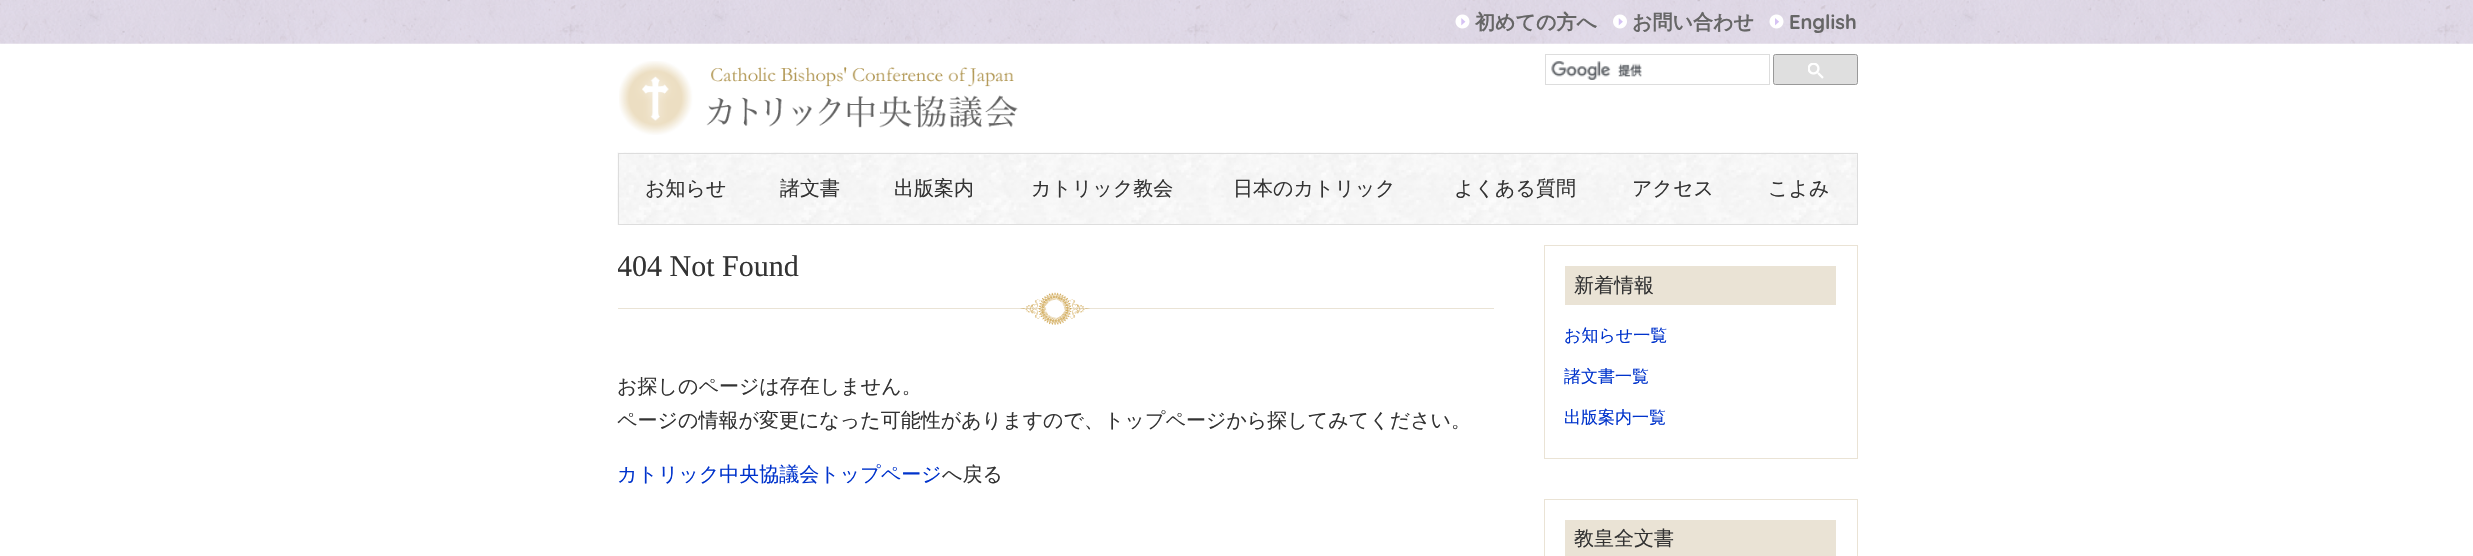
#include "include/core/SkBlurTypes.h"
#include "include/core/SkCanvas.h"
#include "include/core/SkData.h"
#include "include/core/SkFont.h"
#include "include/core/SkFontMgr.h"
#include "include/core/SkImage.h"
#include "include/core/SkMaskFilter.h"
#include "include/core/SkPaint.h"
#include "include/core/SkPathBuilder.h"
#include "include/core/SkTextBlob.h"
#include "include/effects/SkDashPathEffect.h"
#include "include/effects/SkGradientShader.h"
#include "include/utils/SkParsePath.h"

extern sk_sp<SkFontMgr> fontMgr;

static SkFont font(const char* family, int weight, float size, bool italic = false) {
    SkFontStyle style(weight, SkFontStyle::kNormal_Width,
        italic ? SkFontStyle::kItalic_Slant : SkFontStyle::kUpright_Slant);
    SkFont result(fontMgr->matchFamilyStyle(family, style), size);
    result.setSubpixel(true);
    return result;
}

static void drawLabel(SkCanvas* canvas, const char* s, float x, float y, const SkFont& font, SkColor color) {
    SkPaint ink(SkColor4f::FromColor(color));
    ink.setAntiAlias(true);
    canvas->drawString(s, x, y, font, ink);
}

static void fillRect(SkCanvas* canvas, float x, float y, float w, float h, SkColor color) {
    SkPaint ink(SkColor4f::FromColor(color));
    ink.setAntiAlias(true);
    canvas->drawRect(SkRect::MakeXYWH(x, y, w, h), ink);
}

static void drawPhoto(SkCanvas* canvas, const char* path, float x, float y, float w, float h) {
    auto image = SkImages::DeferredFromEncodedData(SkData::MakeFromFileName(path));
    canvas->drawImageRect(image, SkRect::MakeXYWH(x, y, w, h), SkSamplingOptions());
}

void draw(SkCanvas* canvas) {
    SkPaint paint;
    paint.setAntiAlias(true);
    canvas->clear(0xFFFFFFFF);
    drawPhoto(canvas, "assets/img1.png", 0, 0, 2473, 44);
    drawPhoto(canvas, "assets/img2.png", 1455, 14, 15, 15);
    SkFont font1 = font("WenQuanYi Zen Hei", 700, 20);
    drawLabel(canvas, "初めての方へ", 1475, 29, font1, 0xFF666666);
    drawPhoto(canvas, "assets/img3.png", 1613, 14, 14, 15);
    drawLabel(canvas, "お問い合わせ", 1632, 29, font1, 0xFF666666);
    drawPhoto(canvas, "assets/img4.png", 1769, 14, 15, 15);
    SkFont font2 = font("Quicksand", 700, 20);
    drawLabel(canvas, "English", 1789, 29, font2, 0xFF666666);
    drawPhoto(canvas, "assets/img5.png", 619, 61, 399, 74);
    paint.setStroke(true);
    paint.setStrokeWidth(1);
    paint.setColor(0xFFDDDDDD);
    canvas->drawRect(SkRect::MakeXYWH(1545.5f, 54.5f, 224, 30), paint);
    drawPhoto(canvas, "assets/img6.png", 1551, 61, 91, 19);
    paint.setStroke(false);
    paint.setColor(0xFFDFDFDF);
    canvas->drawRoundRect(SkRect::MakeXYWH(1773.5f, 54.5f, 84, 30), 2, 2, paint);
    paint.setStroke(true);
    paint.setColor(0xFF999999);
    canvas->drawRoundRect(SkRect::MakeXYWH(1773.5f, 54.5f, 84, 30), 2, 2, paint);
    drawPhoto(canvas, "assets/img7.png", 1808, 63, 16, 16);
    drawPhoto(canvas, "assets/img8.png", 617, 152, 1241, 73);
    paint.setColor(0xFFDDDDDD);
    canvas->drawRect(SkRect::MakeXYWH(618.5f, 153.5f, 1239, 71), paint);
    SkFont font3 = font("WenQuanYi Zen Hei", 500, 20);
    drawLabel(canvas, "お知らせ", 645, 195, font3, 0xFF333333);
    drawLabel(canvas, "諸文書", 780, 195, font3, 0xFF333333);
    drawLabel(canvas, "出版案内", 894, 195, font3, 0xFF333333);
    drawLabel(canvas, "カトリック教会", 1031, 195, font3, 0xFF333333);
    drawLabel(canvas, "日本のカトリック", 1233, 195, font3, 0xFF333333);
    drawLabel(canvas, "よくある質問", 1454, 195, font3, 0xFF333333);
    drawLabel(canvas, "アクセス", 1632, 195, font3, 0xFF333333);
    drawLabel(canvas, "こよみ", 1768, 195, font3, 0xFF333333);
    fillRect(canvas, 618, 308, 876, 1, 0xFFEAE3D5);
    canvas->save();
    canvas->clipRect(SkRect::MakeXYWH(618, 245, 1240, 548));
    SkFont font4 = font("Liberation Serif", 400, 30);
    drawLabel(canvas, "404 Not Found", 617, 276, font4, 0xFF333333);
    canvas->restore();
    drawPhoto(canvas, "assets/img9.png", 1020, 292, 70, 33);
    drawLabel(canvas, "お探しのページは存在しません。", 617, 393, font3, 0xFF333333);
    drawLabel(canvas, "ページの情報が変更になった可能性がありますので、トップページから探してみてください。", 617, 427, font3, 0xFF333333);
    drawLabel(canvas, "カトリック中央協議会トップページ", 617, 481, font3, 0xFF0033CC);
    drawLabel(canvas, "へ戻る", 942, 481, font3, 0xFF333333);
    paint.setColor(0xFFEAE3D5);
    canvas->drawRect(SkRect::MakeXYWH(1544.5f, 245.5f, 313, 213), paint);
    fillRect(canvas, 1565, 266, 271, 39, 0xFFEAE3D5);
    drawLabel(canvas, "新着情報", 1574, 292, font3, 0xFF333333);
    SkFont font5 = font("WenQuanYi Zen Hei", 500, 17);
    drawLabel(canvas, "お知らせ一覧", 1564, 341, font5, 0xFF0033CC);
    drawLabel(canvas, "諸文書一覧", 1564, 382, font5, 0xFF0033CC);
    drawLabel(canvas, "出版案内一覧", 1564, 423, font5, 0xFF0033CC);
    canvas->drawRect(SkRect::MakeXYWH(1544.5f, 499.5f, 313, 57), paint);
    fillRect(canvas, 1565, 520, 271, 36, 0xFFEAE3D5);
    drawLabel(canvas, "教皇全文書", 1574, 545, font3, 0xFF333333);
}
